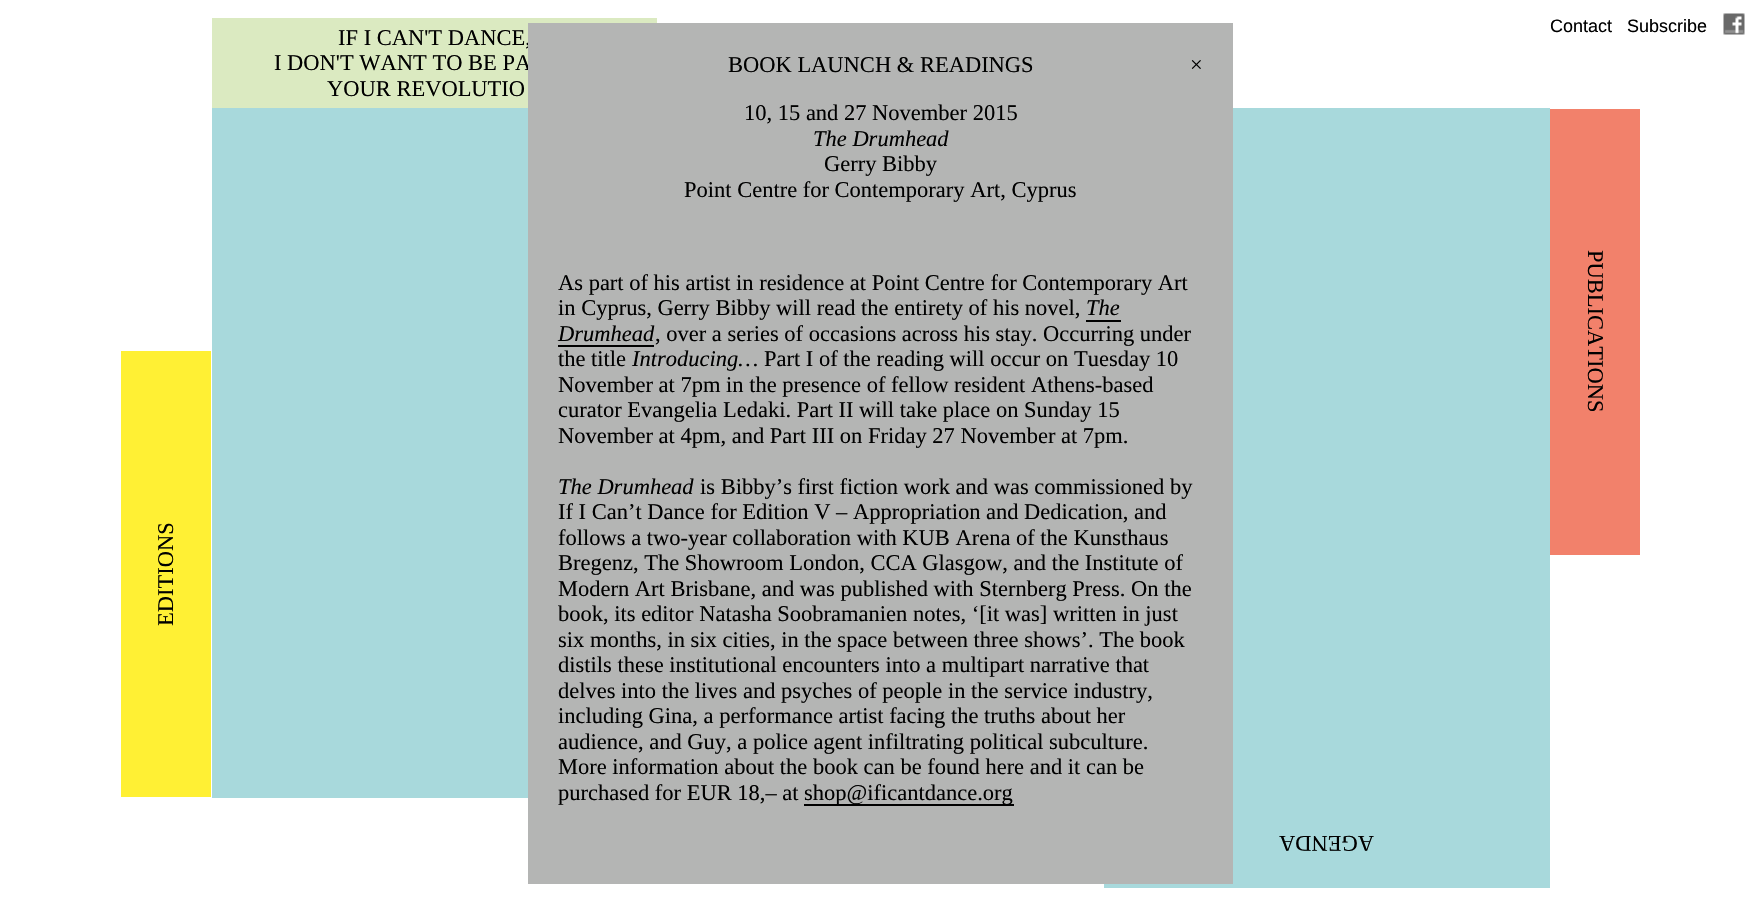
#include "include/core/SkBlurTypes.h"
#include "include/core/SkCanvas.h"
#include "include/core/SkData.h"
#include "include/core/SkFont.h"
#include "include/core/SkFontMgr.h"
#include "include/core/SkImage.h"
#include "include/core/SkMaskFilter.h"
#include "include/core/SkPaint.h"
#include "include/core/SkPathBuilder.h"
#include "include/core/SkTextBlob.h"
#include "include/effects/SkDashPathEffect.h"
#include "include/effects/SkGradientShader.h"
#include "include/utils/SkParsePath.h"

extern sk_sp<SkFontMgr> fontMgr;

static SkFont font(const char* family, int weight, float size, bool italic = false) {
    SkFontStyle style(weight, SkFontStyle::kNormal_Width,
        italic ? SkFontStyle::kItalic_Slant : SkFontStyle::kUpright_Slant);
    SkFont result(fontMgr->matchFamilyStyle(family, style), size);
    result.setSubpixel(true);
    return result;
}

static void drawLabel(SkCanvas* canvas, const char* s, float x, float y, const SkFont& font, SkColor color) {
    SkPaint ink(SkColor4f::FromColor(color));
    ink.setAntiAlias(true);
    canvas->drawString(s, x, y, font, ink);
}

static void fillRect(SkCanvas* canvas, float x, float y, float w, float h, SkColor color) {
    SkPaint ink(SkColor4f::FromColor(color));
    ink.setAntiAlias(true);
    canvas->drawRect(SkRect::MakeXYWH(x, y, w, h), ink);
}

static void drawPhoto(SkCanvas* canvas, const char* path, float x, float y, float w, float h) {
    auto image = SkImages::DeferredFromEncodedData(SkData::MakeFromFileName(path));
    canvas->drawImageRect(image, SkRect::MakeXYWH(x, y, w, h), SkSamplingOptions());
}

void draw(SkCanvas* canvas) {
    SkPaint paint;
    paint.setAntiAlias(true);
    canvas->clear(0xFFFFFFFF);
    SkFont font1 = font("Liberation Sans", 400, 18);
    drawLabel(canvas, "Contact", 1550, 32, font1, 0xFF000000);
    drawLabel(canvas, "Subscribe", 1627, 32, font1, 0xFF000000);
    drawPhoto(canvas, "assets/img1.png", 1723, 13, 22, 22);
    fillRect(canvas, 212, 18, 445, 90, 0xFFDBEAC1);
    SkFont font2 = font("Liberation Serif", 400, 22.5f);
    drawLabel(canvas, "IF I CAN'T DANCE,", 338, 45, font2, 0xFF000000);
    drawLabel(canvas, "I DON'T WANT TO BE PA", 274, 70, font2, 0xFF000000);
    drawLabel(canvas, "YOUR REVOLUTIO", 327, 96, font2, 0xFF000000);
    fillRect(canvas, 1550, 109, 90, 446, 0xFFF2816B);
    canvas->save();
    canvas->rotate(90, 1588, 250);
    drawLabel(canvas, "PUBLICATIONS", 1588, 250, font2, 0xFF000000);
    canvas->restore();
    fillRect(canvas, 121, 351, 90, 446, 0xFFFFF034);
    canvas->save();
    canvas->rotate(-90, 173, 626);
    drawLabel(canvas, "EDITIONS", 173, 626, font2, 0xFF000000);
    canvas->restore();
    fillRect(canvas, 1104, 798, 446, 90, 0xFFA8D9DC);
    canvas->save();
    canvas->rotate(180, 1374, 836);
    drawLabel(canvas, "AGENDA", 1374, 836, font2, 0xFF000000);
    canvas->restore();
    fillRect(canvas, 212, 108, 1338, 690, 0xFFA8D9DC);
    fillRect(canvas, 528, 23, 705, 861, 0xFFB4B5B4);
    drawLabel(canvas, "BOOK LAUNCH & READINGS", 728, 72, font2, 0xFF000000);
    drawLabel(canvas, "×", 1190, 72, font2, 0xFF000000);
    drawLabel(canvas, "10, 15 and 27 November 2015", 744, 120, font2, 0xFF000000);
    SkFont font3 = font("Liberation Serif", 400, 22.5f, true);
    drawLabel(canvas, "The Drumhead", 813, 146, font3, 0xFF000000);
    drawLabel(canvas, "Gerry Bibby", 824, 171, font2, 0xFF000000);
    drawLabel(canvas, "Point Centre for Contemporary Art, Cyprus", 684, 197, font2, 0xFF000000);
    drawLabel(canvas, "As part of his artist in residence at Point Centre for Contemporary Art", 558, 290, font2, 0xFF000000);
    drawLabel(canvas, "in Cyprus, Gerry Bibby will read the entirety of his novel,", 558, 315, font2, 0xFF000000);
    drawLabel(canvas, "The", 1086, 315, font3, 0xFF000000);
    fillRect(canvas, 1086, 320, 35, 2, 0xFF000000);
    drawLabel(canvas, "Drumhead", 558, 341, font3, 0xFF000000);
    fillRect(canvas, 558, 345, 96, 2, 0xFF000000);
    drawLabel(canvas, ", over a series of occasions across his stay. Occurring under", 655, 341, font2, 0xFF000000);
    drawLabel(canvas, "the title", 558, 366, font2, 0xFF000000);
    drawLabel(canvas, "Introducing…", 632, 366, font3, 0xFF000000);
    drawLabel(canvas, "Part I of the reading will occur on Tuesday 10", 764, 366, font2, 0xFF000000);
    drawLabel(canvas, "November at 7pm in the presence of fellow resident Athens-based", 558, 392, font2, 0xFF000000);
    drawLabel(canvas, "curator Evangelia Ledaki. Part II will take place on Sunday 15", 558, 417, font2, 0xFF000000);
    drawLabel(canvas, "November at 4pm, and Part III on Friday 27 November at 7pm.", 558, 443, font2, 0xFF000000);
    drawLabel(canvas, "The Drumhead", 558, 494, font3, 0xFF000000);
    drawLabel(canvas, "is Bibby’s first fiction work and was commissioned by", 700, 494, font2, 0xFF000000);
    drawLabel(canvas, "If I Can’t Dance for Edition V – Appropriation and Dedication, and", 558, 519, font2, 0xFF000000);
    drawLabel(canvas, "follows a two-year collaboration with KUB Arena of the Kunsthaus", 558, 545, font2, 0xFF000000);
    drawLabel(canvas, "Bregenz, The Showroom London, CCA Glasgow, and the Institute of", 558, 570, font2, 0xFF000000);
    drawLabel(canvas, "Modern Art Brisbane, and was published with Sternberg Press. On the", 558, 596, font2, 0xFF000000);
    drawLabel(canvas, "book, its editor Natasha Soobramanien notes, ‘[it was] written in just", 558, 621, font2, 0xFF000000);
    drawLabel(canvas, "six months, in six cities, in the space between three shows’. The book", 558, 647, font2, 0xFF000000);
    drawLabel(canvas, "distils these institutional encounters into a multipart narrative that", 558, 672, font2, 0xFF000000);
    drawLabel(canvas, "delves into the lives and psyches of people in the service industry,", 558, 698, font2, 0xFF000000);
    drawLabel(canvas, "including Gina, a performance artist facing the truths about her", 558, 723, font2, 0xFF000000);
    drawLabel(canvas, "audience, and Guy, a police agent infiltrating political subculture.", 558, 749, font2, 0xFF000000);
    drawLabel(canvas, "More information about the book can be found here and it can be", 558, 774, font2, 0xFF000000);
    drawLabel(canvas, "purchased for EUR 18,– at", 558, 800, font2, 0xFF000000);
    fillRect(canvas, 804, 804, 210, 2, 0xFF000000);
    drawLabel(canvas, "shop@ificantdance.org", 804, 800, font2, 0xFF000000);
}
